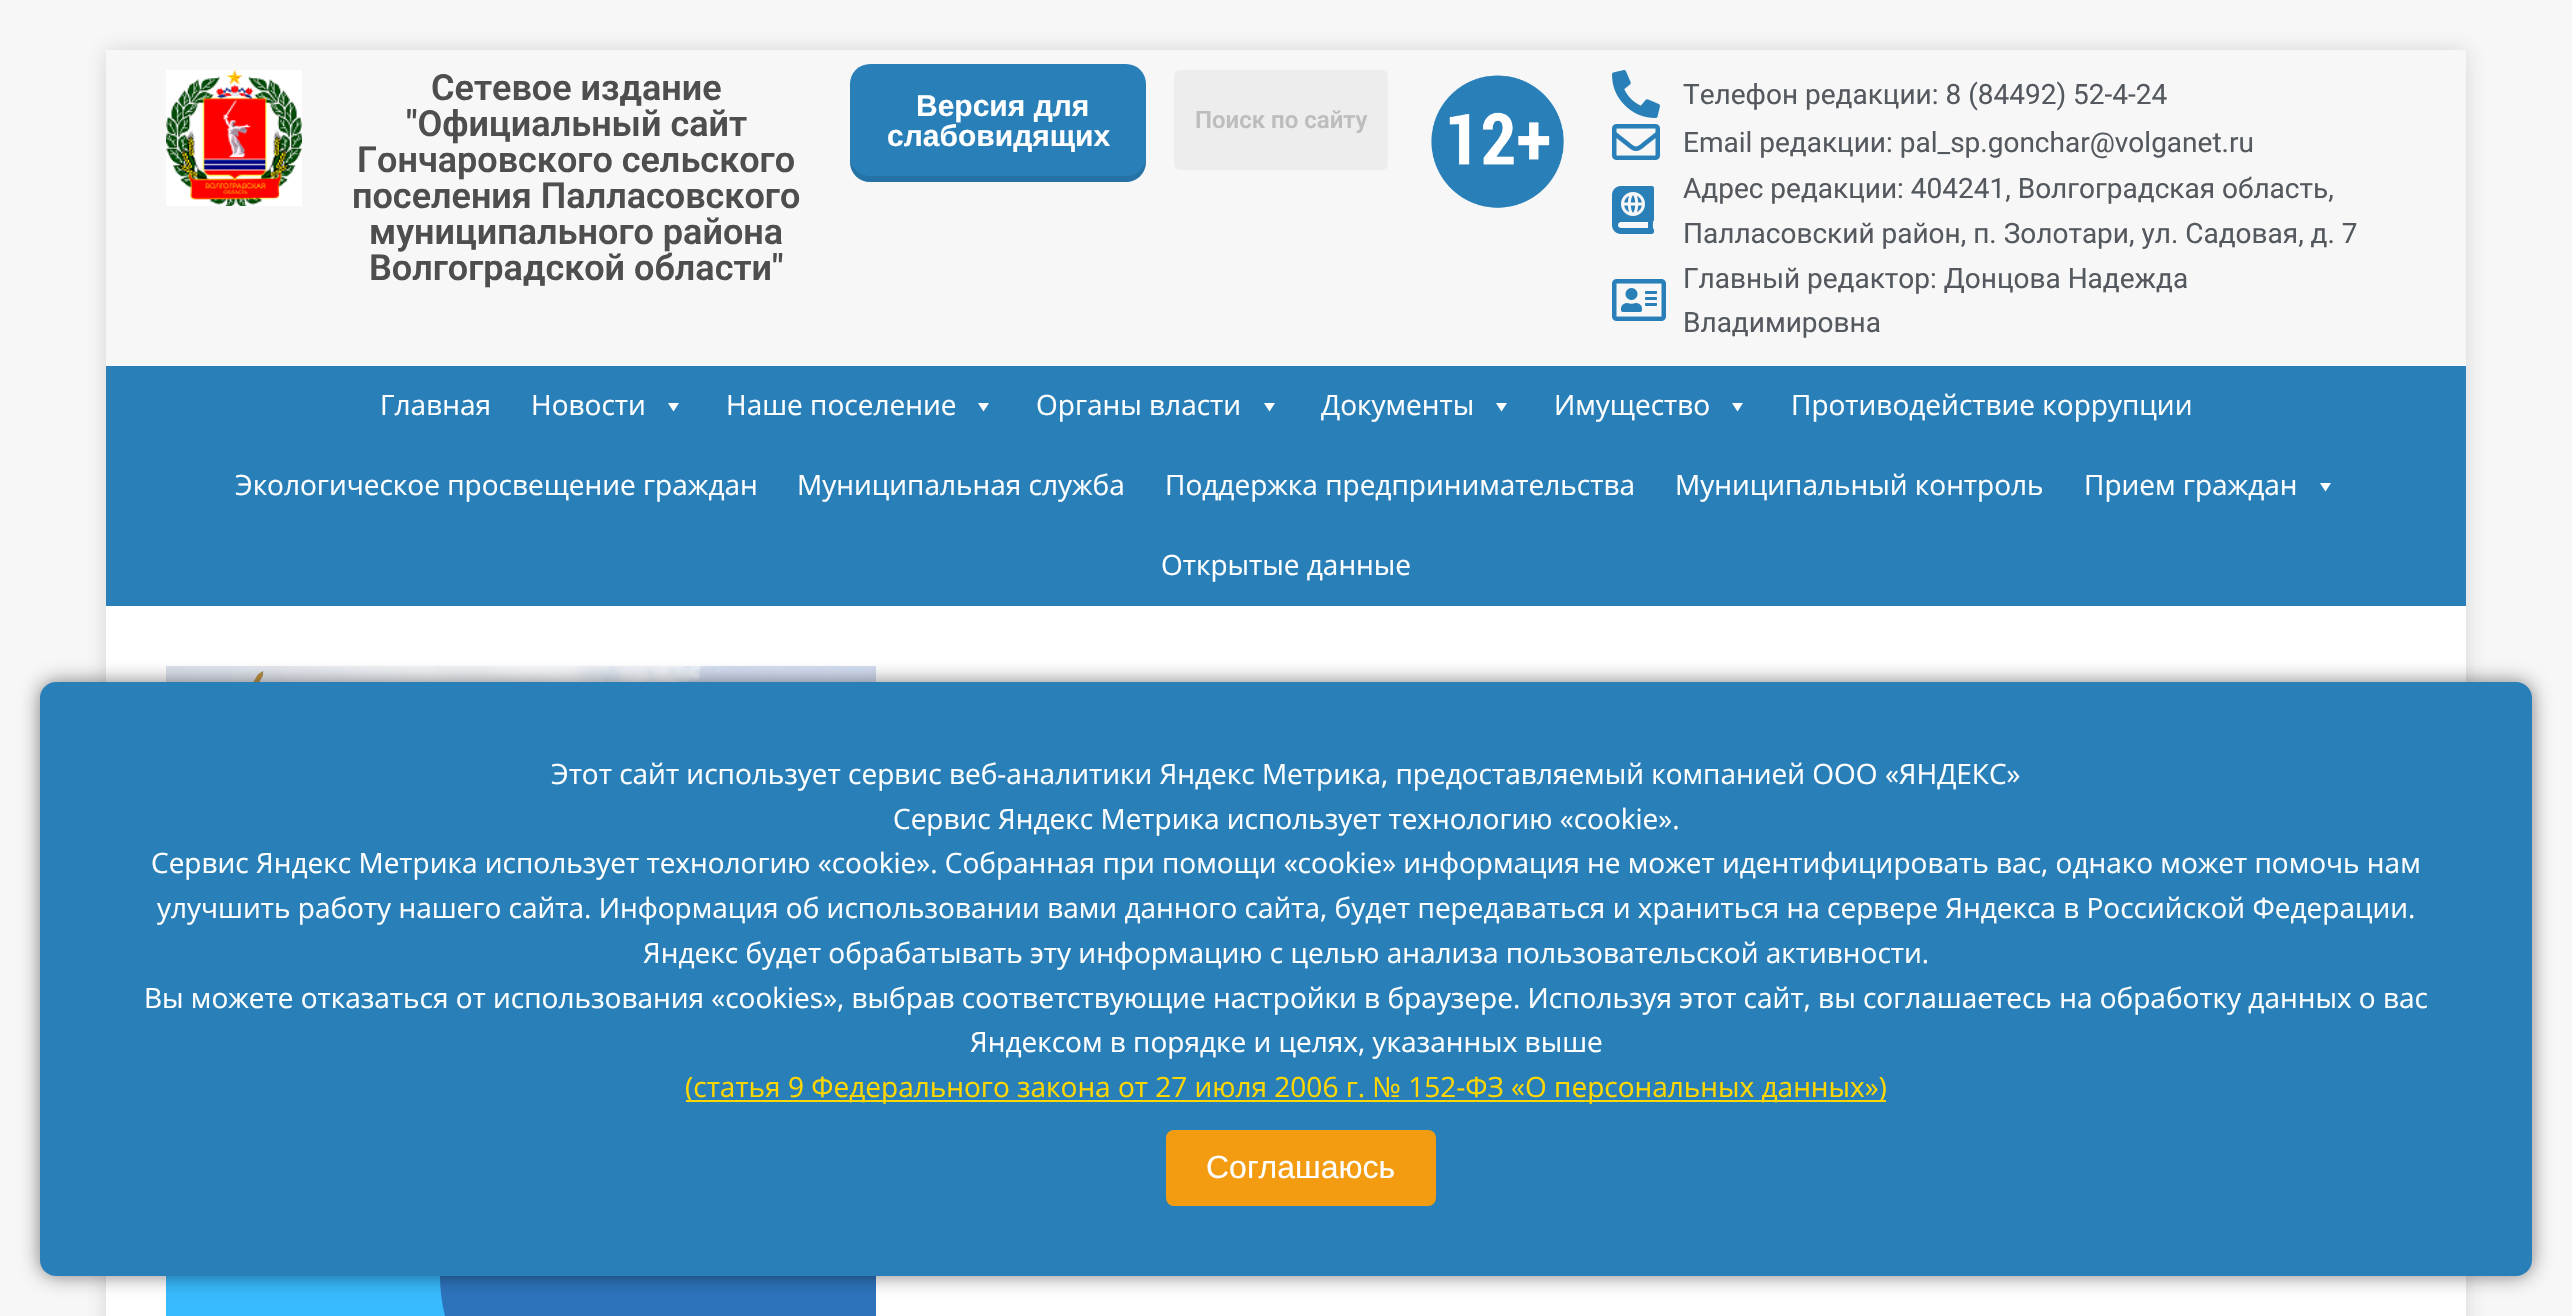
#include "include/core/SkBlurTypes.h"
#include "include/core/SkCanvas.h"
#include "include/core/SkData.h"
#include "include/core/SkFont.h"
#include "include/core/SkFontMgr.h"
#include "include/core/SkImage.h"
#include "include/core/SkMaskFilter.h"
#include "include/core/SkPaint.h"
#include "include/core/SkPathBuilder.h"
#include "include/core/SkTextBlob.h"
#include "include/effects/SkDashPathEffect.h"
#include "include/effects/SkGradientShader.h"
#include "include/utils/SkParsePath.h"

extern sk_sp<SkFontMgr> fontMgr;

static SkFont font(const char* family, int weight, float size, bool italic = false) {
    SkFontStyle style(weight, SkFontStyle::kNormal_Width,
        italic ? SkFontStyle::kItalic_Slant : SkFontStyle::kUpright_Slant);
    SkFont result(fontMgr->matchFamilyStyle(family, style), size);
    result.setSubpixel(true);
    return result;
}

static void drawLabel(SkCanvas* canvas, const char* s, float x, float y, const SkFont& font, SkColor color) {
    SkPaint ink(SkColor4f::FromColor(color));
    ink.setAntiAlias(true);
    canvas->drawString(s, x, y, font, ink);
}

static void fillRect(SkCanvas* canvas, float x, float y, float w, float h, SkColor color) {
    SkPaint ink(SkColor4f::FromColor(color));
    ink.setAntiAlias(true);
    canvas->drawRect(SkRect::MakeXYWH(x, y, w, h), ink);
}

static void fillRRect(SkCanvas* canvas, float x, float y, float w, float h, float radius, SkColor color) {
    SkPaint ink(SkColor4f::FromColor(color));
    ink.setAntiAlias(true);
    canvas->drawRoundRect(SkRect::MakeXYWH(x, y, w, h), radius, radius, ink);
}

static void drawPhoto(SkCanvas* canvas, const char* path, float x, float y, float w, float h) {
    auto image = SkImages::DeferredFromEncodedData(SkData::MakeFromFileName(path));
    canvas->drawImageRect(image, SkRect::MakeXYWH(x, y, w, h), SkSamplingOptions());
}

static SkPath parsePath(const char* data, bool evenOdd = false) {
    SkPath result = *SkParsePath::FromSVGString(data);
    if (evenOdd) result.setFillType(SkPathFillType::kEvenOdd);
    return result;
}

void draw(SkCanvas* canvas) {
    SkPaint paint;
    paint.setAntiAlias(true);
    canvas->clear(0xFFF7F7F7);
    canvas->save();
    canvas->clipPath(parsePath("M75 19H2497V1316H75ZM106 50H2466V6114H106Z", true), true);
    paint.setColor(0x2B323232);
    paint.setMaskFilter(SkMaskFilter::MakeBlur(kNormal_SkBlurStyle, 10));
    canvas->drawRect(SkRect::MakeXYWH(106, 50, 2360, 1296), paint);
    paint.setMaskFilter(nullptr);
    canvas->restore();
    drawPhoto(canvas, "assets/img1.png", 166, 70, 136, 136);
    SkFont font1 = font("Roboto", 600, 36);
    drawLabel(canvas, "Сетевое издание", 431, 100, font1, 0xFF4E4E4E);
    drawLabel(canvas, "\"Официальный сайт", 406, 136, font1, 0xFF4E4E4E);
    drawLabel(canvas, "Гончаровского сельского", 357, 172, font1, 0xFF4E4E4E);
    drawLabel(canvas, "поселения Палласовского", 352, 208, font1, 0xFF4E4E4E);
    drawLabel(canvas, "муниципального района", 369, 244, font1, 0xFF4E4E4E);
    drawLabel(canvas, "Волгоградской области\"", 369, 280, font1, 0xFF4E4E4E);
    fillRRect(canvas, 850, 64, 296, 118, 20, 0xFF2980B9);
    paint.setColor(0x1A000000);
    canvas->drawPath(parsePath("M850 156V162C850 173 859 182 870 182H1126C1137 182 1146 173 1146 162V156C1146 167 1137 176 1126 176H870C859 176 850 167 850 156Z"), paint);
    SkFont font2 = font("Liberation Sans", 700, 30);
    drawLabel(canvas, "Версия для", 916, 116, font2, 0xFFFFFFFF);
    drawLabel(canvas, "слабовидящих", 887, 146, font2, 0xFFFFFFFF);
    fillRRect(canvas, 1174, 70, 214, 100, 6, 0xFFEDEDED);
    SkFont font3 = font("Roboto", 600, 24);
    drawLabel(canvas, "Поиск по сайту", 1195, 128, font3, 0xFFBDBDBD);
    drawPhoto(canvas, "assets/img2.png", 1431, 75, 133, 133);
    drawPhoto(canvas, "assets/img3.png", 1612, 70, 48, 48);
    SkFont font4 = font("Roboto", 400, 28);
    drawLabel(canvas, "Телефон редакции: 8 (84492) 52-4-24", 1683, 104, font4, 0xFF54595F);
    drawPhoto(canvas, "assets/img4.png", 1612, 124, 48, 36);
    drawLabel(canvas, "Email редакции: pal_sp.gonchar@volganet.ru", 1683, 152, font4, 0xFF54595F);
    drawPhoto(canvas, "assets/img5.png", 1612, 186, 42, 48);
    drawLabel(canvas, "Адрес редакции: 404241, Волгоградская область,", 1683, 198, font4, 0xFF54595F);
    drawLabel(canvas, "Палласовский район, п. Золотари, ул. Садовая, д. 7", 1683, 243, font4, 0xFF54595F);
    drawPhoto(canvas, "assets/img6.png", 1612, 279, 54, 42);
    drawLabel(canvas, "Главный редактор: Донцова Надежда", 1683, 288, font4, 0xFF54595F);
    drawLabel(canvas, "Владимировна", 1683, 332, font4, 0xFF54595F);
    fillRect(canvas, 106, 366, 2360, 240, 0xFF2980B9);
    SkFont font5 = font("Open Sans", 400, 28);
    drawLabel(canvas, "Главная", 380, 415, font5, 0xFFFFFFFF);
    drawLabel(canvas, "Новости", 531, 415, font5, 0xFFFFFFFF);
    paint.setColor(0xFFFFFFFF);
    canvas->drawPath(parsePath("M679 403L673.5 411.5L668 403Z"), paint);
    drawLabel(canvas, "Наше поселение", 726, 415, font5, 0xFFFFFFFF);
    canvas->drawPath(parsePath("M989 403L983.5 411.5L978 403Z"), paint);
    drawLabel(canvas, "Органы власти", 1036, 415, font5, 0xFFFFFFFF);
    canvas->drawPath(parsePath("M1275 403L1269.5 411.5L1264 403Z"), paint);
    drawLabel(canvas, "Документы", 1321, 415, font5, 0xFFFFFFFF);
    canvas->drawPath(parsePath("M1507 403L1501.5 411.5L1496 403Z"), paint);
    drawLabel(canvas, "Имущество", 1554, 415, font5, 0xFFFFFFFF);
    canvas->drawPath(parsePath("M1743 403L1737.5 411.5L1732 403Z"), paint);
    drawLabel(canvas, "Противодействие коррупции", 1791, 415, font5, 0xFFFFFFFF);
    drawLabel(canvas, "Экологическое просвещение граждан", 235, 495, font5, 0xFFFFFFFF);
    drawLabel(canvas, "Муниципальная служба", 797, 495, font5, 0xFFFFFFFF);
    drawLabel(canvas, "Поддержка предпринимательства", 1165, 495, font5, 0xFFFFFFFF);
    drawLabel(canvas, "Муниципальный контроль", 1675, 495, font5, 0xFFFFFFFF);
    drawLabel(canvas, "Прием граждан", 2084, 495, font5, 0xFFFFFFFF);
    canvas->drawPath(parsePath("M2331 483L2325.5 491.5L2320 483Z"), paint);
    drawLabel(canvas, "Открытые данные", 1161, 575, font5, 0xFFFFFFFF);
    fillRect(canvas, 106, 606, 2360, 710, 0xFFFFFFFF);
    drawPhoto(canvas, "assets/img7.png", 166, 666, 710, 16);
    {
        const SkColor colors[] = {0xFF38BAFE, 0xFF2D73BC};
        const float stops[] = {0.26f, 0.79f};
        const SkPoint ends[] = {{94, 1290}, {948, 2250}};
        paint.setShader(SkGradientShader::MakeLinear(ends, colors, stops, 2, SkTileMode::kClamp));
        paint.setAlpha(255);
    }
    canvas->drawRect(SkRect::MakeXYWH(166, 1276, 279, 40), paint);
    paint.setShader(nullptr);
    paint.setColor(0xFF2D73BC);
    canvas->drawPath(parsePath("M440 1226H876V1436H600C511.5 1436 440 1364.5 440 1276Z"), paint);
    paint.setColor(0x80000000);
    paint.setMaskFilter(SkMaskFilter::MakeBlur(kNormal_SkBlurStyle, 10));
    canvas->drawRoundRect(SkRect::MakeXYWH(40, 682, 2492, 594), 16, 16, paint);
    paint.setMaskFilter(nullptr);
    fillRRect(canvas, 40, 682, 2492, 594, 16, 0xFF2980B9);
    drawLabel(canvas, "Этот сайт использует сервис веб-аналитики Яндекс Метрика, предоставляемый компанией ООО «ЯНДЕКС»", 551, 784, font5, 0xFFFFFFFF);
    drawLabel(canvas, "Сервис Яндекс Метрика использует технологию «cookie».", 893, 829, font5, 0xFFFFFFFF);
    drawLabel(canvas, "Сервис Яндекс Метрика использует технологию «cookie». Собранная при помощи «cookie» информация не может идентифицировать вас, однако может помочь нам", 151, 873, font5, 0xFFFFFFFF);
    drawLabel(canvas, "улучшить работу нашего сайта. Информация об использовании вами данного сайта, будет передаваться и храниться на сервере Яндекса в Российской Федерации.", 157, 918, font5, 0xFFFFFFFF);
    drawLabel(canvas, "Яндекс будет обрабатывать эту информацию с целью анализа пользовательской активности.", 643, 963, font5, 0xFFFFFFFF);
    drawLabel(canvas, "Вы можете отказаться от использования «cookies», выбрав соответствующие настройки в браузере. Используя этот сайт, вы соглашаетесь на обработку данных о вас", 144, 1008, font5, 0xFFFFFFFF);
    drawLabel(canvas, "Яндексом в порядке и целях, указанных выше", 970, 1052, font5, 0xFFFFFFFF);
    fillRect(canvas, 686, 1100, 1200, 2, 0xFFFFD700);
    drawLabel(canvas, "(статья 9 Федерального закона от 27 июля 2006 г. № 152-ФЗ «О персональных данных»)", 685, 1097, font5, 0xFFFFD700);
    fillRRect(canvas, 1166, 1130, 270, 76, 8, 0xFFF39C12);
    SkFont font6 = font("Liberation Sans", 400, 32);
    drawLabel(canvas, "Соглашаюсь", 1206, 1178, font6, 0xFFFFFFFF);
}
